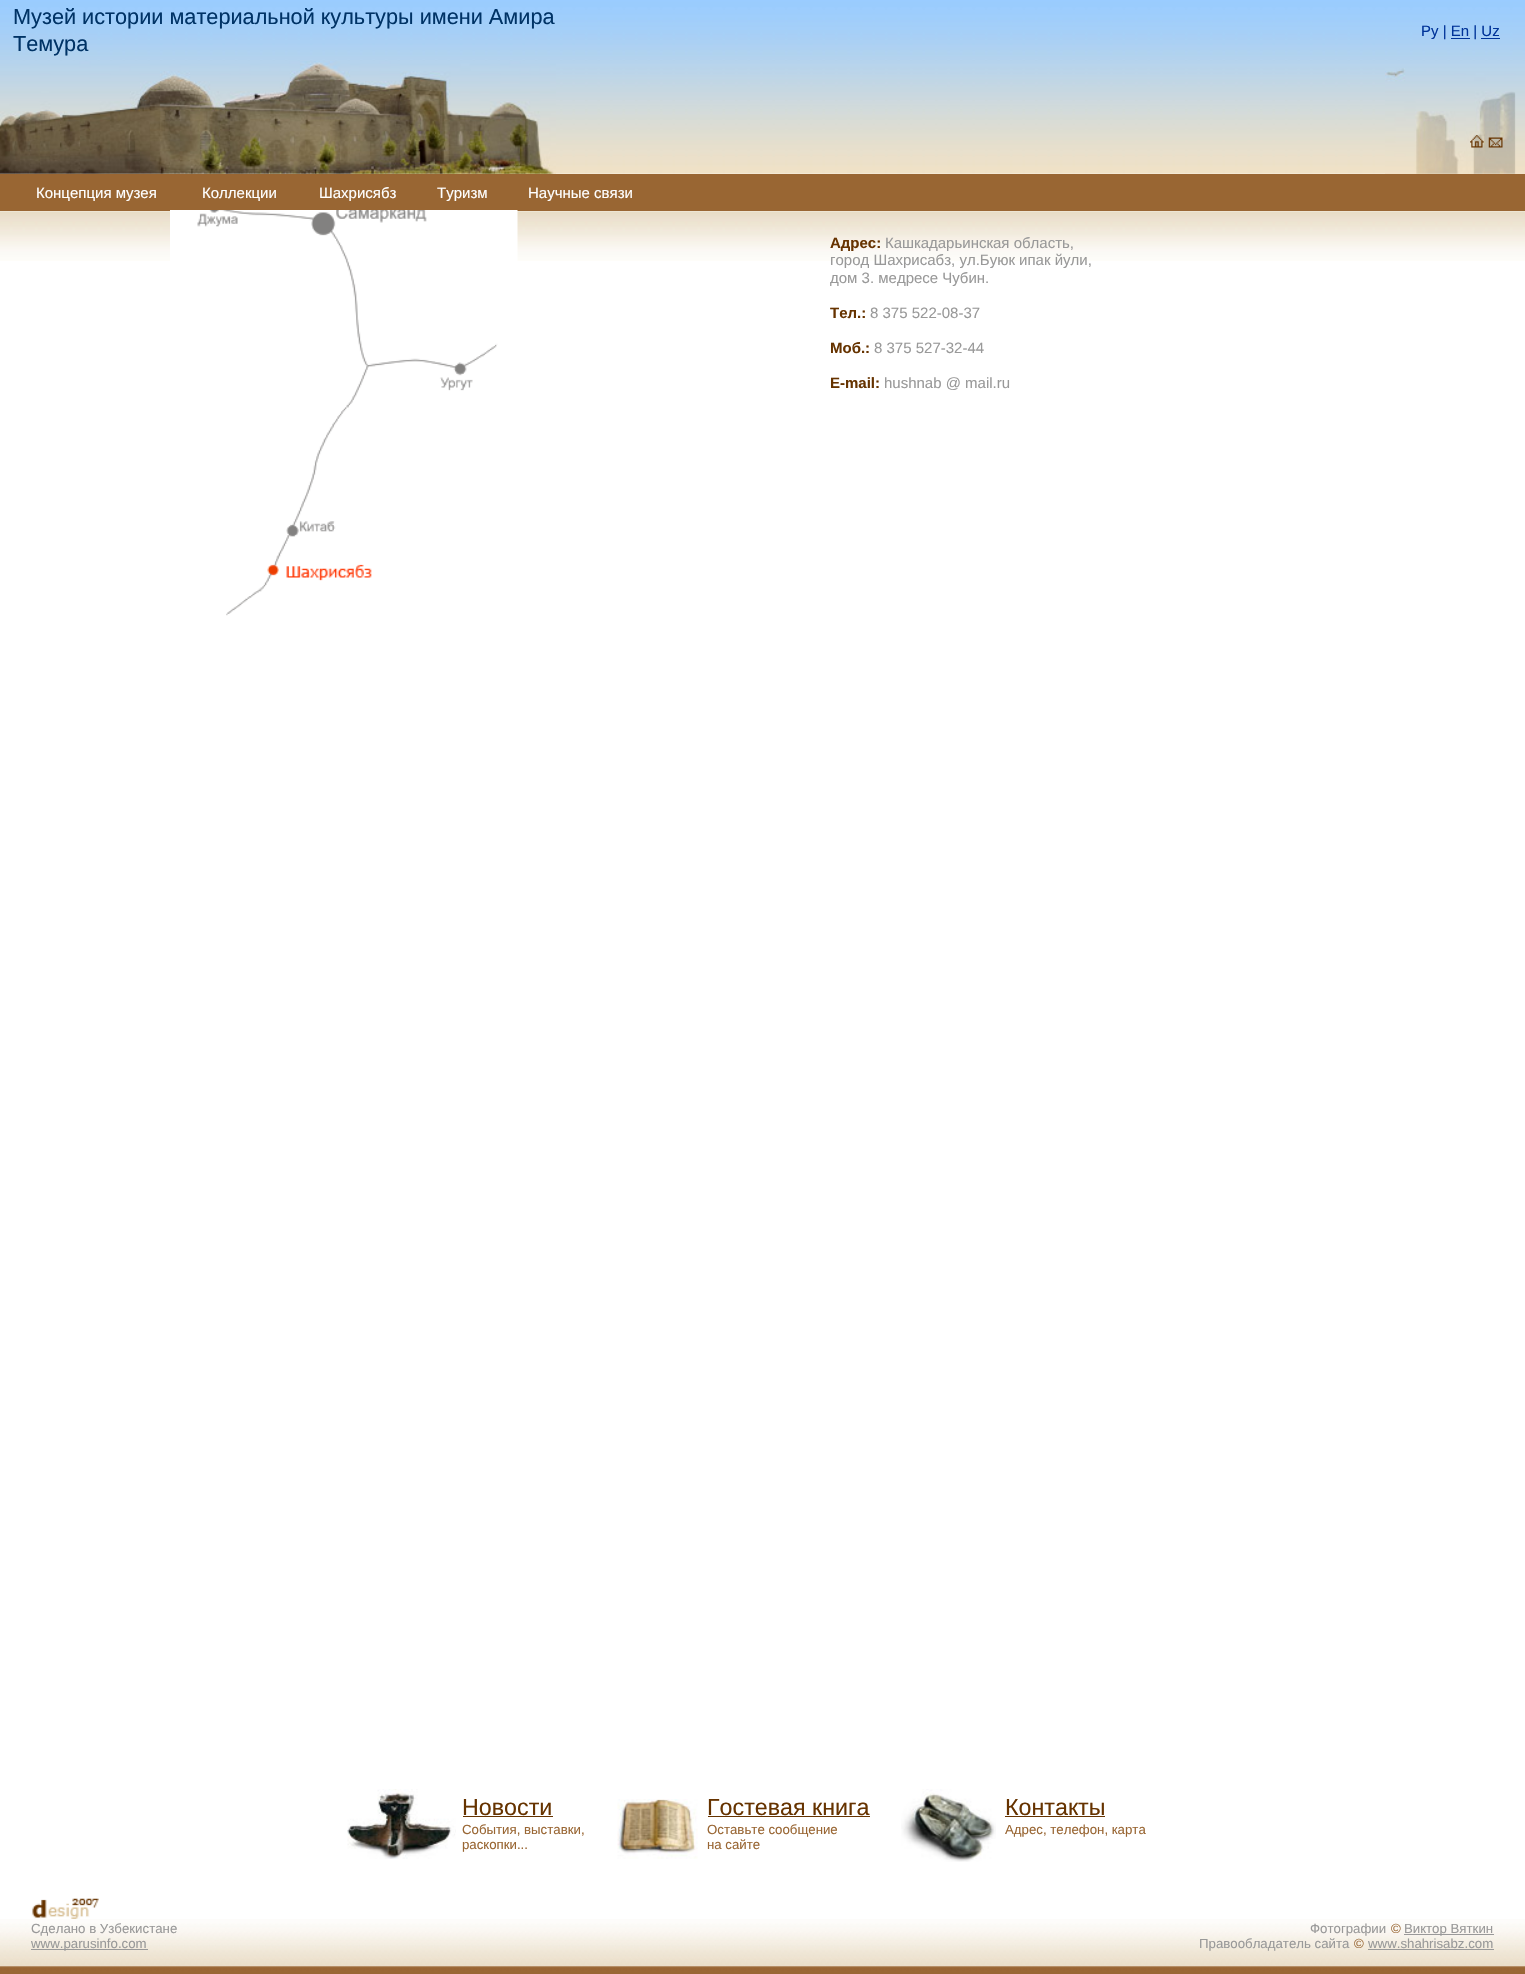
#include "include/core/SkBlurTypes.h"
#include "include/core/SkCanvas.h"
#include "include/core/SkData.h"
#include "include/core/SkFont.h"
#include "include/core/SkFontMgr.h"
#include "include/core/SkImage.h"
#include "include/core/SkMaskFilter.h"
#include "include/core/SkPaint.h"
#include "include/core/SkPathBuilder.h"
#include "include/core/SkTextBlob.h"
#include "include/effects/SkDashPathEffect.h"
#include "include/effects/SkGradientShader.h"
#include "include/utils/SkParsePath.h"

extern sk_sp<SkFontMgr> fontMgr;

static SkFont font(const char* family, int weight, float size, bool italic = false) {
    SkFontStyle style(weight, SkFontStyle::kNormal_Width,
        italic ? SkFontStyle::kItalic_Slant : SkFontStyle::kUpright_Slant);
    SkFont result(fontMgr->matchFamilyStyle(family, style), size);
    result.setSubpixel(true);
    return result;
}

static void drawLabel(SkCanvas* canvas, const char* s, float x, float y, const SkFont& font, SkColor color) {
    SkPaint ink(SkColor4f::FromColor(color));
    ink.setAntiAlias(true);
    canvas->drawString(s, x, y, font, ink);
}

static void fillRect(SkCanvas* canvas, float x, float y, float w, float h, SkColor color) {
    SkPaint ink(SkColor4f::FromColor(color));
    ink.setAntiAlias(true);
    canvas->drawRect(SkRect::MakeXYWH(x, y, w, h), ink);
}

static void drawPhoto(SkCanvas* canvas, const char* path, float x, float y, float w, float h) {
    auto image = SkImages::DeferredFromEncodedData(SkData::MakeFromFileName(path));
    canvas->drawImageRect(image, SkRect::MakeXYWH(x, y, w, h), SkSamplingOptions());
}

void draw(SkCanvas* canvas) {
    SkPaint paint;
    paint.setAntiAlias(true);
    canvas->clear(0xFFFFFFFF);
    drawPhoto(canvas, "assets/img1.png", 0, 0, 1525, 174);
    SkFont font1 = font("Liberation Sans", 400, 21.7f);
    drawLabel(canvas, "Музей истории материальной культуры имени Амира", 13, 24, font1, 0xFF003366);
    drawLabel(canvas, "Темура", 13, 51, font1, 0xFF003366);
    SkFont font2 = font("Liberation Sans", 400, 15);
    drawLabel(canvas, "Py | En | Uz", 1421, 36, font2, 0xFF003399);
    fillRect(canvas, 1451, 38, 19, 1, 0xFF003399);
    fillRect(canvas, 1481, 38, 19, 1, 0xFF003399);
    drawPhoto(canvas, "assets/img2.png", 0, 61, 556, 113);
    drawPhoto(canvas, "assets/img3.png", 1385, 68, 140, 106);
    fillRect(canvas, 0, 174, 1525, 37, 0xFF996633);
    drawPhoto(canvas, "assets/img4.png", 0, 211, 1525, 50);
    drawPhoto(canvas, "assets/img5.png", 1470, 135, 14, 13);
    drawPhoto(canvas, "assets/img6.png", 1488, 137, 15, 11);
    drawPhoto(canvas, "assets/img7.png", 170, 210, 348, 406);
    SkFont font3 = font("Liberation Sans", 700, 15);
    drawLabel(canvas, "Адрес:", 830, 248, font3, 0xFF663300);
    drawLabel(canvas, "Кашкадарьинская область,", 885, 248, font2, 0xFF999999);
    drawLabel(canvas, "город Шахрисабз, ул.Буюк ипак йули,", 830, 265, font2, 0xFF999999);
    drawLabel(canvas, "дом 3. медресе Чубин.", 830, 283, font2, 0xFF999999);
    drawLabel(canvas, "Тел.:", 830, 318, font3, 0xFF663300);
    drawLabel(canvas, "8 375 522-08-37", 870, 318, font2, 0xFF999999);
    drawLabel(canvas, "Моб.:", 830, 353, font3, 0xFF663300);
    drawLabel(canvas, "8 375 527-32-44", 874, 353, font2, 0xFF999999);
    drawLabel(canvas, "E-mail:", 830, 388, font3, 0xFF663300);
    drawLabel(canvas, "hushnab @ mail.ru", 884, 388, font2, 0xFF999999);
    drawPhoto(canvas, "assets/img8.png", 347, 1789, 109, 70);
    SkFont font4 = font("Liberation Sans", 400, 23.25f);
    drawLabel(canvas, "Новости", 462, 1815, font4, 0xFF663300);
    fillRect(canvas, 463, 1816, 90, 1, 0xFF663300);
    SkFont font5 = font("Liberation Sans", 400, 13.25f);
    drawLabel(canvas, "События, выставки,", 462, 1834, font5, 0xFF996633);
    drawLabel(canvas, "раскопки...", 462, 1849, font5, 0xFF996633);
    drawPhoto(canvas, "assets/img9.png", 617, 1799, 81, 60);
    drawLabel(canvas, "Гостевая книга", 707, 1815, font4, 0xFF663300);
    fillRect(canvas, 708, 1816, 162, 1, 0xFF663300);
    drawLabel(canvas, "Оставьте сообщение", 707, 1834, font5, 0xFF996633);
    drawLabel(canvas, "на сайте", 707, 1849, font5, 0xFF996633);
    drawPhoto(canvas, "assets/img10.png", 901, 1789, 95, 73);
    drawLabel(canvas, "Контакты", 1005, 1815, font4, 0xFF663300);
    fillRect(canvas, 1005, 1816, 100, 1, 0xFF663300);
    drawLabel(canvas, "Адрес, телефон, карта", 1005, 1834, font5, 0xFF996633);
    drawPhoto(canvas, "assets/img11.png", 0, 1919, 1525, 55);
    drawPhoto(canvas, "assets/img12.png", 31, 1898, 68, 21);
    drawLabel(canvas, "Сделано в Узбекистане", 31, 1933, font5, 0xFF999999);
    fillRect(canvas, 31, 1949, 117, 1, 0xFF999999);
    drawLabel(canvas, "www.parusinfo.com", 31, 1948, font5, 0xFF999999);
    drawLabel(canvas, "Фотографии", 1310, 1933, font5, 0xFF999999);
    drawLabel(canvas, "©", 1391, 1933, font5, 0xFF996633);
    fillRect(canvas, 1404, 1934, 90, 1, 0xFF999999);
    drawLabel(canvas, "Виктор Вяткин", 1404, 1933, font5, 0xFF999999);
    drawLabel(canvas, "Правообладатель сайта", 1199, 1948, font5, 0xFF999999);
    drawLabel(canvas, "©", 1354, 1948, font5, 0xFF996633);
    drawLabel(canvas, "www.shahrisabz.com", 1368, 1948, font5, 0xFF999999);
    fillRect(canvas, 1368, 1949, 126, 1, 0xFF999999);
    drawLabel(canvas, "Концепция музея", 36, 198, font2, 0xFFFFFFFF);
    drawLabel(canvas, "Коллекции", 202, 198, font2, 0xFFFFFFFF);
    drawLabel(canvas, "Шахрисябз", 319, 198, font2, 0xFFFFFFFF);
    drawLabel(canvas, "Туризм", 437, 198, font2, 0xFFFFFFFF);
    drawLabel(canvas, "Научные связи", 528, 198, font2, 0xFFFFFFFF);
}
